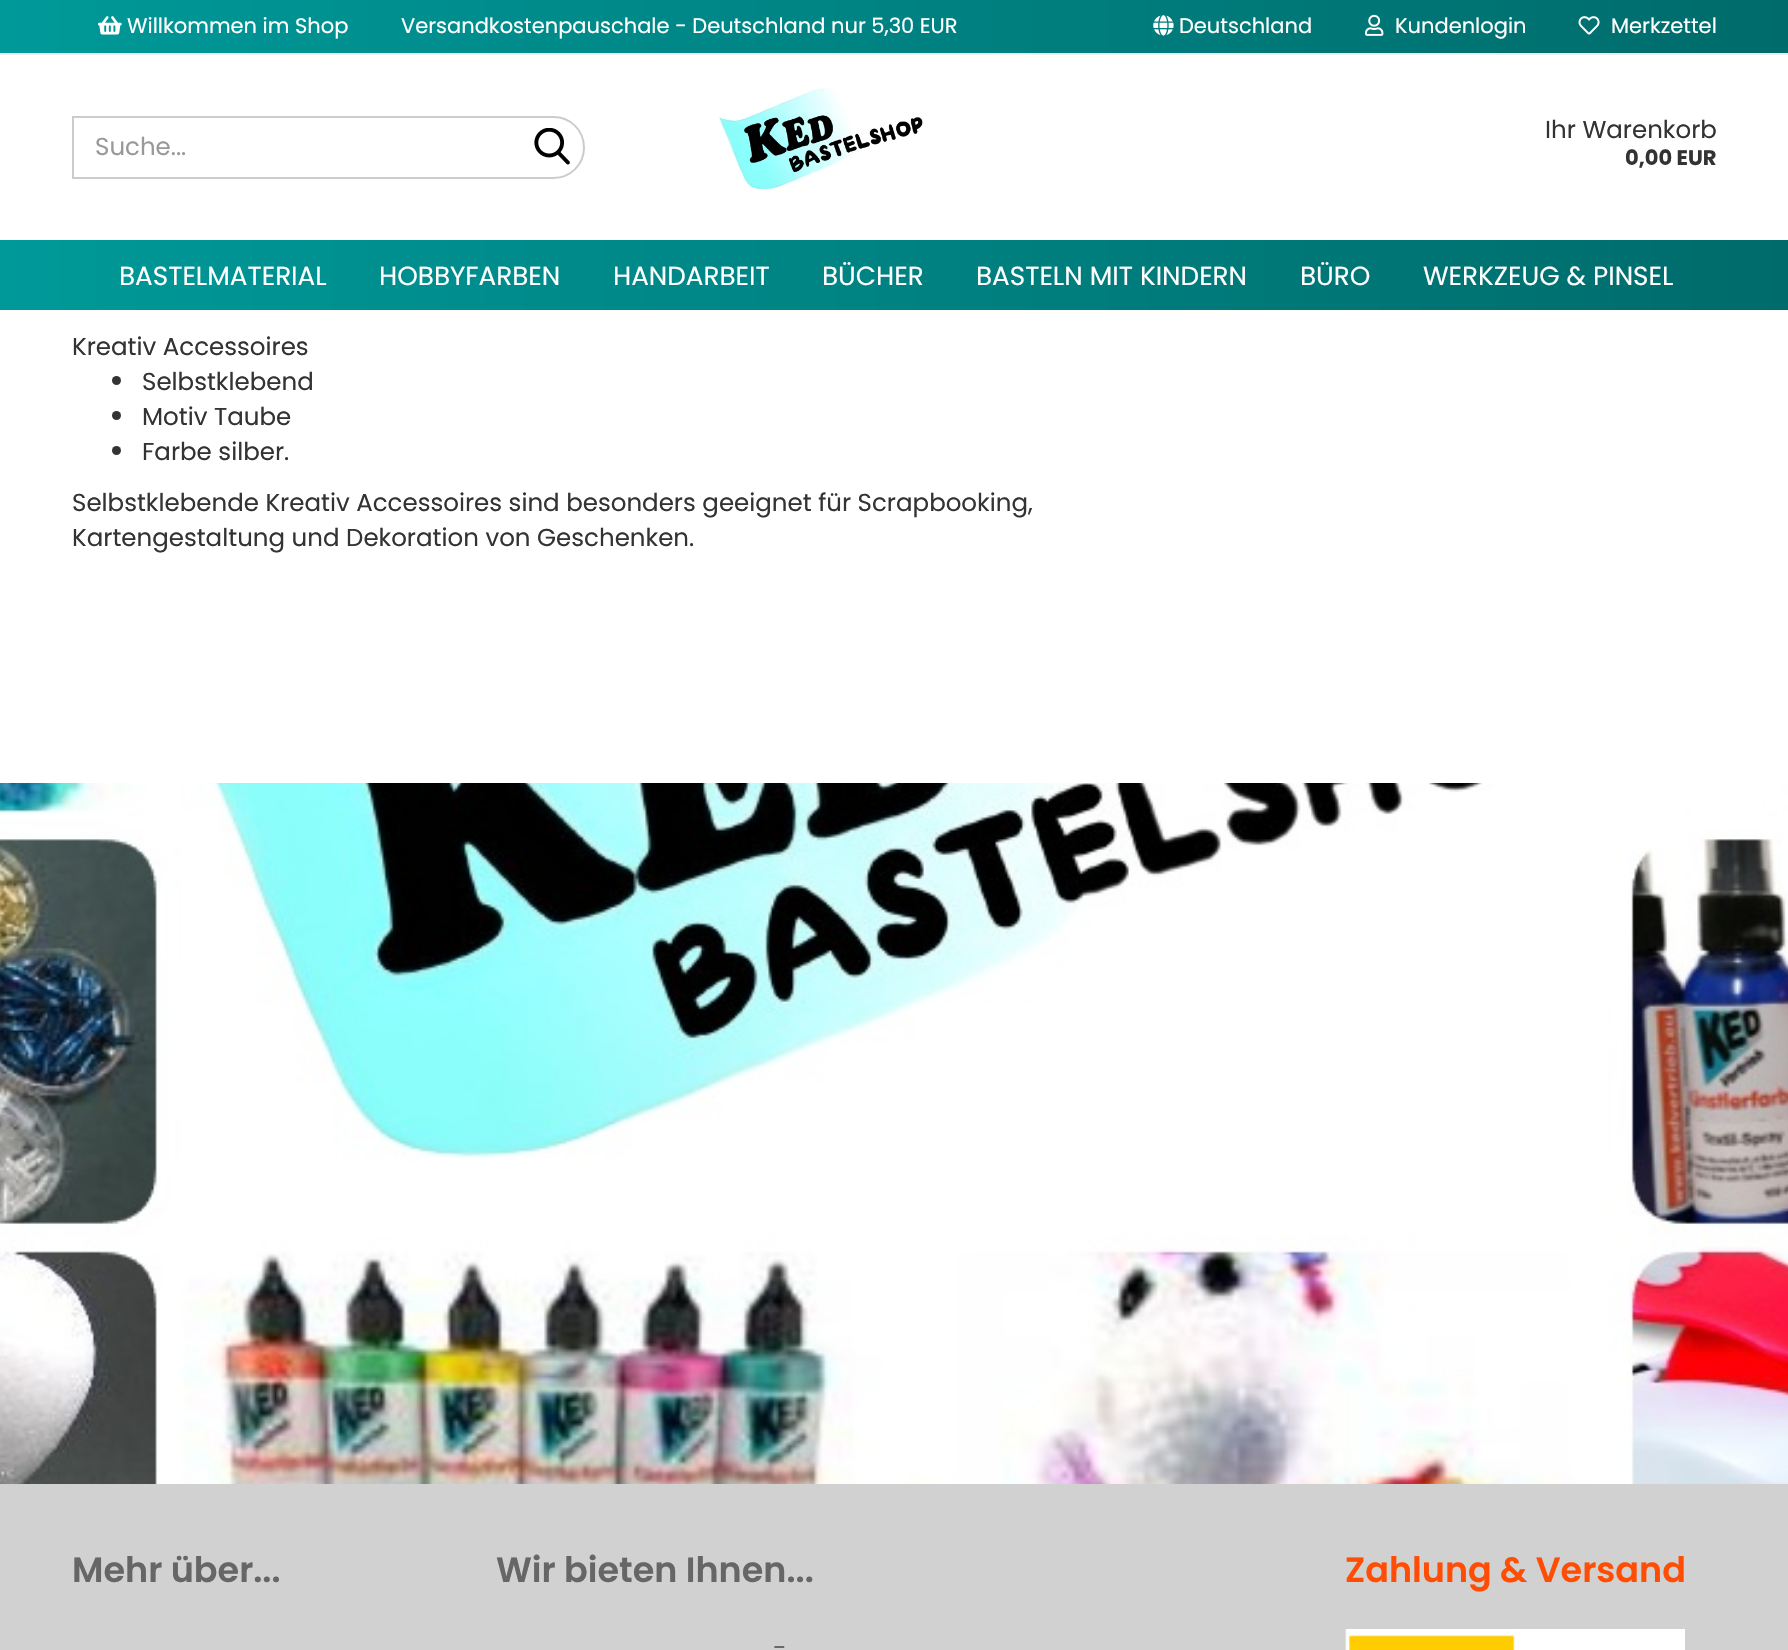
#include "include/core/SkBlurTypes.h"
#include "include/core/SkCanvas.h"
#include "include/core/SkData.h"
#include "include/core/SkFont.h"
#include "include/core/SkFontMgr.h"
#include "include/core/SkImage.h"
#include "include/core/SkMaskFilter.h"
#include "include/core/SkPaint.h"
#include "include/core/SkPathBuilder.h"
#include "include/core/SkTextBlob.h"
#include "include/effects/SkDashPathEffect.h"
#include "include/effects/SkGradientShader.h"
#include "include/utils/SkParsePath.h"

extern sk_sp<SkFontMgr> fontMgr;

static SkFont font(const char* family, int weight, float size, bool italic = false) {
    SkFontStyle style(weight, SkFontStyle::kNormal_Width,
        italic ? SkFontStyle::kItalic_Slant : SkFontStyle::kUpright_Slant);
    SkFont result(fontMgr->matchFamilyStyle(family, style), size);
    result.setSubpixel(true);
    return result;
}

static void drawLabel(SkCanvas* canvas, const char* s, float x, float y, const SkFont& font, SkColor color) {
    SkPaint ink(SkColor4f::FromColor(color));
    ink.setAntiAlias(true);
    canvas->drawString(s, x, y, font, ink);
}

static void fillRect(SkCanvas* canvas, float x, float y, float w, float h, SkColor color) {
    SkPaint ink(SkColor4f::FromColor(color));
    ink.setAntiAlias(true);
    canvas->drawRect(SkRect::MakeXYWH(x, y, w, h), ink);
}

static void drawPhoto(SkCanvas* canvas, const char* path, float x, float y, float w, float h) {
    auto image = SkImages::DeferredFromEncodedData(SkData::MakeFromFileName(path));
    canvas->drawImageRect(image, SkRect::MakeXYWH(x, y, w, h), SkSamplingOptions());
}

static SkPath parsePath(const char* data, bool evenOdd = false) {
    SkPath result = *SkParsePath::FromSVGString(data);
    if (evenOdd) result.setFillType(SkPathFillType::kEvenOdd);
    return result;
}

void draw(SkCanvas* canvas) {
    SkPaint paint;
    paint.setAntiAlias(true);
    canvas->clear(0xFFFFFFFF);
    {
        const SkColor colors[] = {0xFF009999, 0xFF006B6B};
        const float stops[] = {0, 1};
        const SkPoint ends[] = {{0, 26}, {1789, 26}};
        paint.setShader(SkGradientShader::MakeLinear(ends, colors, stops, 2, SkTileMode::kClamp));
        paint.setAlpha(255);
    }
    canvas->drawRect(SkRect::MakeXYWH(0, 0, 1788, 53), paint);
    fillRect(canvas, 0, 53, 1788, 2, 0xFFEEEEEE);
    drawPhoto(canvas, "assets/img1.png", 98, 16, 24, 19);
    SkFont font1 = font("Poppins", 400, 21);
    drawLabel(canvas, "Willkommen im Shop", 127, 33, font1, 0xFFFFFFFF);
    drawLabel(canvas, "Versandkostenpauschale - Deutschland nur 5,30 EUR", 401, 33, font1, 0xFFFFFFFF);
    drawPhoto(canvas, "assets/img2.png", 1153, 15, 21, 21);
    drawLabel(canvas, "Deutschland", 1179, 33, font1, 0xFFFFFFFF);
    drawPhoto(canvas, "assets/img3.png", 1365, 14, 19, 22);
    drawLabel(canvas, "Kundenlogin", 1395, 33, font1, 0xFFFFFFFF);
    drawPhoto(canvas, "assets/img4.png", 1578, 16, 22, 19);
    drawLabel(canvas, "Merkzettel", 1611, 33, font1, 0xFFFFFFFF);
    paint.setStroke(true);
    paint.setStrokeWidth(2);
    paint.setShader(nullptr);
    paint.setColor(0xFFCCCCCC);
    canvas->drawPath(parsePath("M73 117H553.5C570.5 117 584 130.5 584 147.5C584 164.5 570.5 178 553.5 178H73Z"), paint);
    SkFont font2 = font("Poppins", 400, 24.5f);
    drawLabel(canvas, "Suche...", 95, 155, font2, 0xFF999999);
    drawPhoto(canvas, "assets/img5.png", 534, 128, 36, 37);
    drawPhoto(canvas, "assets/img6.png", 719, 88, 204, 102);
    drawLabel(canvas, "Ihr Warenkorb", 1545, 138, font2, 0xFF333333);
    SkFont font3 = font("Poppins", 700, 21);
    drawLabel(canvas, "0,00 EUR", 1625, 165, font3, 0xFF333333);
    paint.setStroke(false);
    {
        const SkColor colors[] = {0xFF009999, 0xFF006B6B};
        const float stops[] = {0, 1};
        const SkPoint ends[] = {{0, 275}, {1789, 275}};
        paint.setShader(SkGradientShader::MakeLinear(ends, colors, stops, 2, SkTileMode::kClamp));
        paint.setAlpha(255);
    }
    canvas->drawRect(SkRect::MakeXYWH(0, 240, 1788, 70), paint);
    SkFont font4 = font("Poppins", 400, 26.25f);
    drawLabel(canvas, "BASTELMATERIAL", 119, 285, font4, 0xFFFFFFFF);
    drawLabel(canvas, "HOBBYFARBEN", 379, 285, font4, 0xFFFFFFFF);
    drawLabel(canvas, "HANDARBEIT", 613, 285, font4, 0xFFFFFFFF);
    drawLabel(canvas, "BÜCHER", 822, 285, font4, 0xFFFFFFFF);
    drawLabel(canvas, "BASTELN MIT KINDERN", 976, 285, font4, 0xFFFFFFFF);
    drawLabel(canvas, "BÜRO", 1300, 285, font4, 0xFFFFFFFF);
    drawLabel(canvas, "WERKZEUG & PINSEL", 1423, 285, font4, 0xFFFFFFFF);
    drawLabel(canvas, "Kreativ Accessoires", 72, 355, font2, 0xFF333333);
    paint.setShader(nullptr);
    paint.setColor(0xFF333333);
    canvas->drawCircle(116.5f, 380.5f, 4.5f, paint);
    drawLabel(canvas, "Selbstklebend", 142, 390, font2, 0xFF333333);
    canvas->drawCircle(116.5f, 415.5f, 4.5f, paint);
    drawLabel(canvas, "Motiv Taube", 142, 425, font2, 0xFF333333);
    canvas->drawCircle(116.5f, 450.5f, 4.5f, paint);
    drawLabel(canvas, "Farbe silber.", 142, 460, font2, 0xFF333333);
    drawLabel(canvas, "Selbstklebende Kreativ Accessoires sind besonders geeignet für Scrapbooking,", 72, 511, font2, 0xFF333333);
    drawLabel(canvas, "Kartengestaltung und Dekoration von Geschenken.", 72, 546, font2, 0xFF333333);
    fillRect(canvas, 0, 1484, 1788, 166, 0xFFD1D1D1);
    drawPhoto(canvas, "assets/img7.png", 0, 783, 1788, 701);
    SkFont font5 = font("Poppins", 600, 35);
    drawLabel(canvas, "Mehr über...", 72, 1582, font5, 0xFF666666);
    drawLabel(canvas, "Wir bieten Ihnen...", 496, 1582, font5, 0xFF666666);
    drawLabel(canvas, "-", 773, 1656, font2, 0xFF666666);
    drawLabel(canvas, "Zahlung & Versand", 1345, 1582, font5, 0xFFFF4D03);
    drawPhoto(canvas, "assets/img8.png", 1345, 1629, 340, 21);
}
